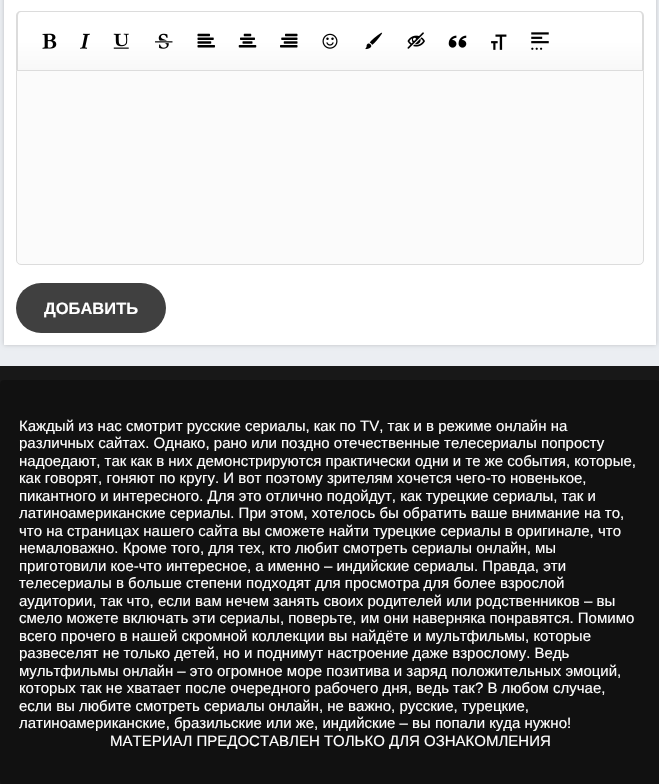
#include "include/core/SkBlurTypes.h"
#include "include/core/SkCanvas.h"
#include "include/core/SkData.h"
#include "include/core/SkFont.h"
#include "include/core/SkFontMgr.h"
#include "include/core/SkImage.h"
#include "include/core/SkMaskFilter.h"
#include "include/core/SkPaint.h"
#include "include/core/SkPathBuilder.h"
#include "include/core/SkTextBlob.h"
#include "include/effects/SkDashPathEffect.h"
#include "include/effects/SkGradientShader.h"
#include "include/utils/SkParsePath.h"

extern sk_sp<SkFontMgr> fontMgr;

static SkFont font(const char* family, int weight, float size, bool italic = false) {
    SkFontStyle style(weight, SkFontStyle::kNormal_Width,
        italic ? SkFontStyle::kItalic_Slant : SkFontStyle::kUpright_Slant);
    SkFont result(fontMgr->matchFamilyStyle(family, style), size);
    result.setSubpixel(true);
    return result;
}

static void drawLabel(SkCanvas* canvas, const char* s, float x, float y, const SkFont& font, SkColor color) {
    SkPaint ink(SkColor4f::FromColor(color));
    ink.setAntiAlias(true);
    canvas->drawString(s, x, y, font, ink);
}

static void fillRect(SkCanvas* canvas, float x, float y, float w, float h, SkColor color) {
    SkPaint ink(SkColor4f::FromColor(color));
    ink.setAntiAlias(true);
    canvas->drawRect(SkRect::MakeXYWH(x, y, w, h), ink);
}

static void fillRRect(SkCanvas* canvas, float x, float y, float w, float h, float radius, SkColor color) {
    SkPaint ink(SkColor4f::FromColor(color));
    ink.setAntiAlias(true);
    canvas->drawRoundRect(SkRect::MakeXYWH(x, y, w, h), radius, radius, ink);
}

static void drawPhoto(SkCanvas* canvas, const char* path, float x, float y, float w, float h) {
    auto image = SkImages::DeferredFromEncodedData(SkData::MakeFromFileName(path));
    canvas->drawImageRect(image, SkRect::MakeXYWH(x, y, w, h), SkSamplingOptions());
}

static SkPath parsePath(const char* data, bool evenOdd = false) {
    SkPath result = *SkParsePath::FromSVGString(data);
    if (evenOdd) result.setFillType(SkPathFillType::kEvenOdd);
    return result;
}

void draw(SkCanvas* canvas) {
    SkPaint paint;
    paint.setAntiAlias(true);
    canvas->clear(0xFF181818);
    fillRect(canvas, 0, 0, 659, 366, 0xFFEBEEF2);
    paint.setColor(0x33000000);
    paint.setMaskFilter(SkMaskFilter::MakeBlur(kNormal_SkBlurStyle, 2));
    canvas->drawRect(SkRect::MakeXYWH(4, -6, 652, 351), paint);
    paint.setMaskFilter(nullptr);
    fillRect(canvas, 4, 0, 652, 345, 0xFFFFFFFF);
    {
        const SkColor colors[] = {0xFFFFFFFF, 0xFFF8F8F8};
        const float stops[] = {0.5f, 1};
        const SkPoint ends[] = {{330, 12}, {330, 70}};
        paint.setShader(SkGradientShader::MakeLinear(ends, colors, stops, 2, SkTileMode::kClamp));
        paint.setAlpha(255);
    }
    canvas->drawPath(parsePath("M22 13H639C641 13 643 15 643 17V70H18V17C18 15 20 13 22 13Z"), paint);
    paint.setShader(nullptr);
    paint.setColor(0xFFDCDCDC);
    canvas->drawPath(parsePath("M21 11H639C642 11 644 13 644 16V70H16V16C16 13 18 11 21 11ZM21 12H639C641 12 642 14 642 16V70H18V16C18 14 19 12 21 12Z", true), paint);
    drawPhoto(canvas, "assets/img1.png", 42, 33, 15, 16);
    drawPhoto(canvas, "assets/img2.png", 80, 33, 10, 16);
    drawPhoto(canvas, "assets/img3.png", 113, 33, 16, 16);
    drawPhoto(canvas, "assets/img4.png", 155, 33, 18, 16);
    drawPhoto(canvas, "assets/img5.png", 197, 33, 18, 15);
    drawPhoto(canvas, "assets/img6.png", 238, 33, 19, 15);
    drawPhoto(canvas, "assets/img7.png", 280, 33, 18, 15);
    drawPhoto(canvas, "assets/img8.png", 322, 33, 16, 16);
    drawPhoto(canvas, "assets/img9.png", 365, 32, 18, 18);
    drawPhoto(canvas, "assets/img10.png", 407, 32, 18, 17);
    drawPhoto(canvas, "assets/img11.png", 448, 35, 19, 13);
    drawPhoto(canvas, "assets/img12.png", 491, 34, 16, 16);
    drawPhoto(canvas, "assets/img13.png", 531, 32, 18, 18);
    paint.setColor(0xFFFBFBFB);
    canvas->drawPath(parsePath("M16.5 70.5H643.5V260C643.5 262.5 641.5 264.5 639 264.5H21C18.5 264.5 16.5 262.5 16.5 260Z"), paint);
    paint.setStroke(true);
    paint.setStrokeWidth(1);
    paint.setColor(0xFFDCDCDC);
    canvas->drawPath(parsePath("M16.5 70.5H643.5V260C643.5 262.5 641.5 264.5 639 264.5H21C18.5 264.5 16.5 262.5 16.5 260Z"), paint);
    fillRRect(canvas, 16, 283, 150, 50, 25, 0xFF404040);
    SkFont font1 = font("Liberation Sans", 700, 16.5f);
    drawLabel(canvas, "ДОБАВИТЬ", 44, 314, font1, 0xFFFFFFFF);
    fillRRect(canvas, 0, 380, 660, 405, 4, 0xFF111111);
    SkFont font2 = font("Liberation Sans", 400, 15);
    drawLabel(canvas, "Каждый из нас смотрит русские сериалы, как по TV, так и в режиме онлайн на", 19, 431, font2, 0xFFFFFFFF);
    drawLabel(canvas, "различных сайтах. Однако, рано или поздно отечественные телесериалы попросту", 19, 448, font2, 0xFFFFFFFF);
    drawLabel(canvas, "надоедают, так как в них демонстрируются практически одни и те же события, которые,", 19, 466, font2, 0xFFFFFFFF);
    drawLabel(canvas, "как говорят, гоняют по кругу. И вот поэтому зрителям хочется чего-то новенькое,", 19, 483, font2, 0xFFFFFFFF);
    drawLabel(canvas, "пикантного и интересного. Для это отлично подойдут, как турецкие сериалы, так и", 19, 501, font2, 0xFFFFFFFF);
    drawLabel(canvas, "латиноамериканские сериалы. При этом, хотелось бы обратить ваше внимание на то,", 19, 518, font2, 0xFFFFFFFF);
    drawLabel(canvas, "что на страницах нашего сайта вы сможете найти турецкие сериалы в оригинале, что", 19, 536, font2, 0xFFFFFFFF);
    drawLabel(canvas, "немаловажно. Кроме того, для тех, кто любит смотреть сериалы онлайн, мы", 19, 553, font2, 0xFFFFFFFF);
    drawLabel(canvas, "приготовили кое-что интересное, а именно – индийские сериалы. Правда, эти", 19, 571, font2, 0xFFFFFFFF);
    drawLabel(canvas, "телесериалы в больше степени подходят для просмотра для более взрослой", 19, 588, font2, 0xFFFFFFFF);
    drawLabel(canvas, "аудитории, так что, если вам нечем занять своих родителей или родственников – вы", 19, 606, font2, 0xFFFFFFFF);
    drawLabel(canvas, "смело можете включать эти сериалы, поверьте, им они наверняка понравятся. Помимо", 19, 623, font2, 0xFFFFFFFF);
    drawLabel(canvas, "всего прочего в нашей скромной коллекции вы найдёте и мультфильмы, которые", 19, 641, font2, 0xFFFFFFFF);
    drawLabel(canvas, "развеселят не только детей, но и поднимут настроение даже взрослому. Ведь", 19, 658, font2, 0xFFFFFFFF);
    drawLabel(canvas, "мультфильмы онлайн – это огромное море позитива и заряд положительных эмоций,", 19, 676, font2, 0xFFFFFFFF);
    drawLabel(canvas, "которых так не хватает после очередного рабочего дня, ведь так? В любом случае,", 19, 693, font2, 0xFFFFFFFF);
    drawLabel(canvas, "если вы любите смотреть сериалы онлайн, не важно, русские, турецкие,", 19, 711, font2, 0xFFFFFFFF);
    drawLabel(canvas, "латиноамериканские, бразильские или же, индийские – вы попали куда нужно!", 19, 728, font2, 0xFFFFFFFF);
    drawLabel(canvas, "МАТЕРИАЛ ПРЕДОСТАВЛЕН ТОЛЬКО ДЛЯ ОЗНАКОМЛЕНИЯ", 110, 746, font2, 0xFFFFFFFF);
}
